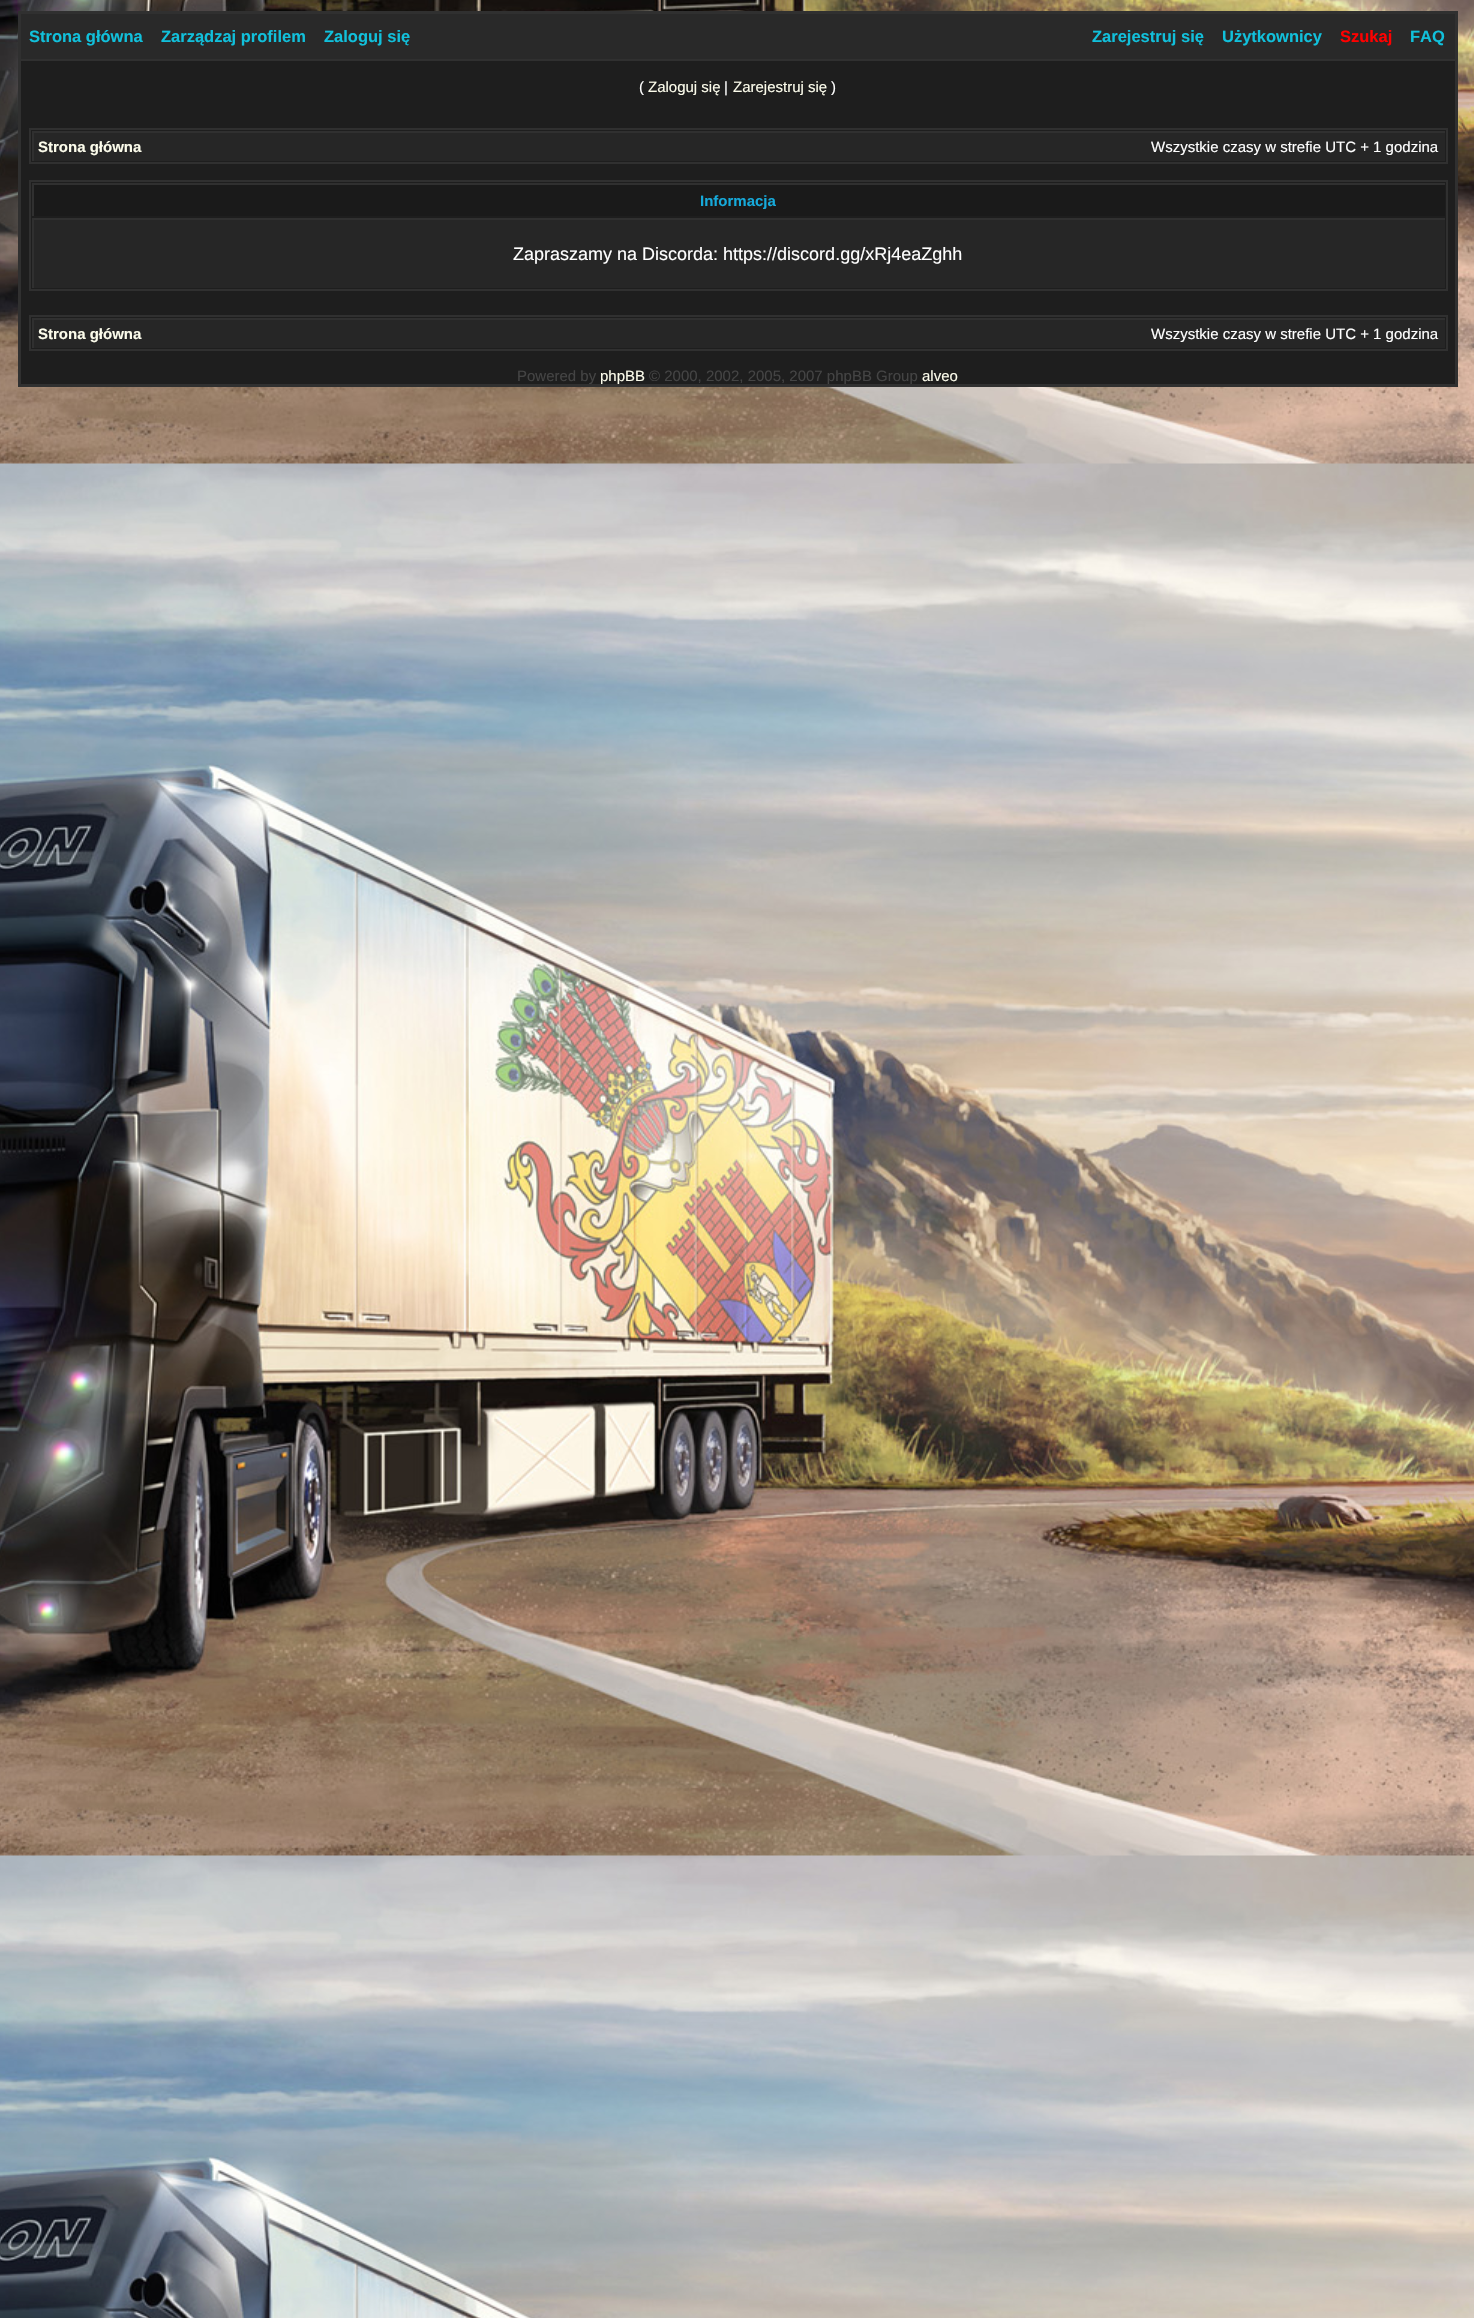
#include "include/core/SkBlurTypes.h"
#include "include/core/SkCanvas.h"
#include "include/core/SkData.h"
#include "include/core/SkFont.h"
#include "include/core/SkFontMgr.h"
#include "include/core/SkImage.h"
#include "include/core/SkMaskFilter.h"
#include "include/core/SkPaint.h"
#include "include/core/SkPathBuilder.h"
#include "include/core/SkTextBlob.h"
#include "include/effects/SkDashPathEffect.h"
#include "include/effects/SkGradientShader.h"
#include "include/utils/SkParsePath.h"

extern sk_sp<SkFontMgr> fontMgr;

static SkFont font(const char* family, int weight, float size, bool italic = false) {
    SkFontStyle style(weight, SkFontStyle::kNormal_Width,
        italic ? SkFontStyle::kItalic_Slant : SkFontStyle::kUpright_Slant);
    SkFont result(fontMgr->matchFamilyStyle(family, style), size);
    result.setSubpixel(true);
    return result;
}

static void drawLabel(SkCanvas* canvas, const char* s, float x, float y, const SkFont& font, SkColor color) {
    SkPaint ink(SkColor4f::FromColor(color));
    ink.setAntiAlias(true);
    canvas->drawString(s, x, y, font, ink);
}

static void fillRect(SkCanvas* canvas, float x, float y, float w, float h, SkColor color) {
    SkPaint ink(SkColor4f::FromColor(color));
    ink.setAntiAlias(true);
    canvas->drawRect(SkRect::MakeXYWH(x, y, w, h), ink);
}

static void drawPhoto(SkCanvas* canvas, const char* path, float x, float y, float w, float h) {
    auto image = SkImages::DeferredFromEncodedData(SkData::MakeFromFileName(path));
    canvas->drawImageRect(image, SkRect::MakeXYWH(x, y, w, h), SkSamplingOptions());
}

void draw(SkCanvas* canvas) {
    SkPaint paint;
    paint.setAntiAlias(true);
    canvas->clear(0xFFFFFFFF);
    drawPhoto(canvas, "assets/img1.png", 0, 0, 1474, 2318);
    fillRect(canvas, 18, 11, 1440, 1, 0xFF303030);
    fillRect(canvas, 1455, 11, 3, 376, 0xFF303030);
    fillRect(canvas, 18, 384, 1440, 3, 0xFF303030);
    fillRect(canvas, 18, 11, 3, 376, 0xFF303030);
    fillRect(canvas, 21, 61, 1434, 323, 0xFF1E1E1E);
    fillRect(canvas, 21, 14, 1434, 45, 0xFF292929);
    fillRect(canvas, 21, 12, 1434, 2, 0xFF303030);
    fillRect(canvas, 21, 59, 1434, 2, 0xFF303030);
    SkFont font1 = font("Liberation Sans", 700, 16.5f);
    drawLabel(canvas, "Strona główna", 29, 42, font1, 0xFF11C0DB);
    drawLabel(canvas, "Zarządzaj profilem", 161, 42, font1, 0xFF11C0DB);
    drawLabel(canvas, "Zaloguj się", 324, 42, font1, 0xFF11C0DB);
    drawLabel(canvas, "Zarejestruj się", 1092, 42, font1, 0xFF11C0DB);
    drawLabel(canvas, "Użytkownicy", 1222, 42, font1, 0xFF11C0DB);
    drawLabel(canvas, "Szukaj", 1340, 42, font1, 0xFFFF0000);
    drawLabel(canvas, "FAQ", 1410, 42, font1, 0xFF11C0DB);
    SkFont font2 = font("Liberation Sans", 400, 15);
    drawLabel(canvas, "(", 639, 92, font2, 0xFFFFFFFF);
    drawLabel(canvas, "Zaloguj się", 648, 92, font2, 0xFFFCFCEB);
    drawLabel(canvas, "|", 724, 92, font2, 0xFFFFFFFF);
    drawLabel(canvas, "Zarejestruj się", 733, 92, font2, 0xFFFCFCEB);
    drawLabel(canvas, ")", 831, 92, font2, 0xFFFFFFFF);
    paint.setStroke(true);
    paint.setStrokeWidth(2);
    paint.setColor(0xFF303030);
    canvas->drawRect(SkRect::MakeXYWH(30, 129, 1417, 34), paint);
    fillRect(canvas, 34, 133, 1411, 28, 0xFF262626);
    fillRect(canvas, 32, 131, 1413, 2, 0xFF303030);
    fillRect(canvas, 32, 131, 2, 30, 0xFF303030);
    SkFont font3 = font("Liberation Sans", 700, 15);
    drawLabel(canvas, "Strona główna", 38, 152, font3, 0xFFFCFCEB);
    drawLabel(canvas, "Wszystkie czasy w strefie UTC + 1 godzina", 1151, 152, font2, 0xFFFFFFFF);
    canvas->drawRect(SkRect::MakeXYWH(30, 181, 1417, 109), paint);
    fillRect(canvas, 34, 185, 1411, 31, 0xFF1A1A1A);
    fillRect(canvas, 32, 183, 1413, 2, 0xFF303030);
    fillRect(canvas, 32, 183, 2, 33, 0xFF303030);
    drawLabel(canvas, "Informacja", 700, 206, font3, 0xFF16AADB);
    fillRect(canvas, 34, 220, 1411, 68, 0xFF262626);
    fillRect(canvas, 32, 218, 1413, 2, 0xFF303030);
    fillRect(canvas, 32, 218, 2, 70, 0xFF303030);
    SkFont font4 = font("Liberation Sans", 400, 18);
    drawLabel(canvas, "Zapraszamy na Discorda: https://discord.gg/xRj4eaZghh", 513, 260, font4, 0xFFFFFFFF);
    canvas->drawRect(SkRect::MakeXYWH(30, 316, 1417, 34), paint);
    fillRect(canvas, 34, 320, 1411, 28, 0xFF262626);
    fillRect(canvas, 32, 318, 1413, 2, 0xFF303030);
    fillRect(canvas, 32, 318, 2, 30, 0xFF303030);
    drawLabel(canvas, "Strona główna", 38, 339, font3, 0xFFFCFCEB);
    drawLabel(canvas, "Wszystkie czasy w strefie UTC + 1 godzina", 1151, 339, font2, 0xFFFFFFFF);
    drawLabel(canvas, "Powered by", 517, 381, font2, 0xFF444444);
    drawLabel(canvas, "phpBB", 600, 381, font2, 0xFFFCFCEB);
    drawLabel(canvas, "© 2000, 2002, 2005, 2007 phpBB Group", 649, 381, font2, 0xFF444444);
    drawLabel(canvas, "alveo", 922, 381, font2, 0xFFFCFCEB);
}
